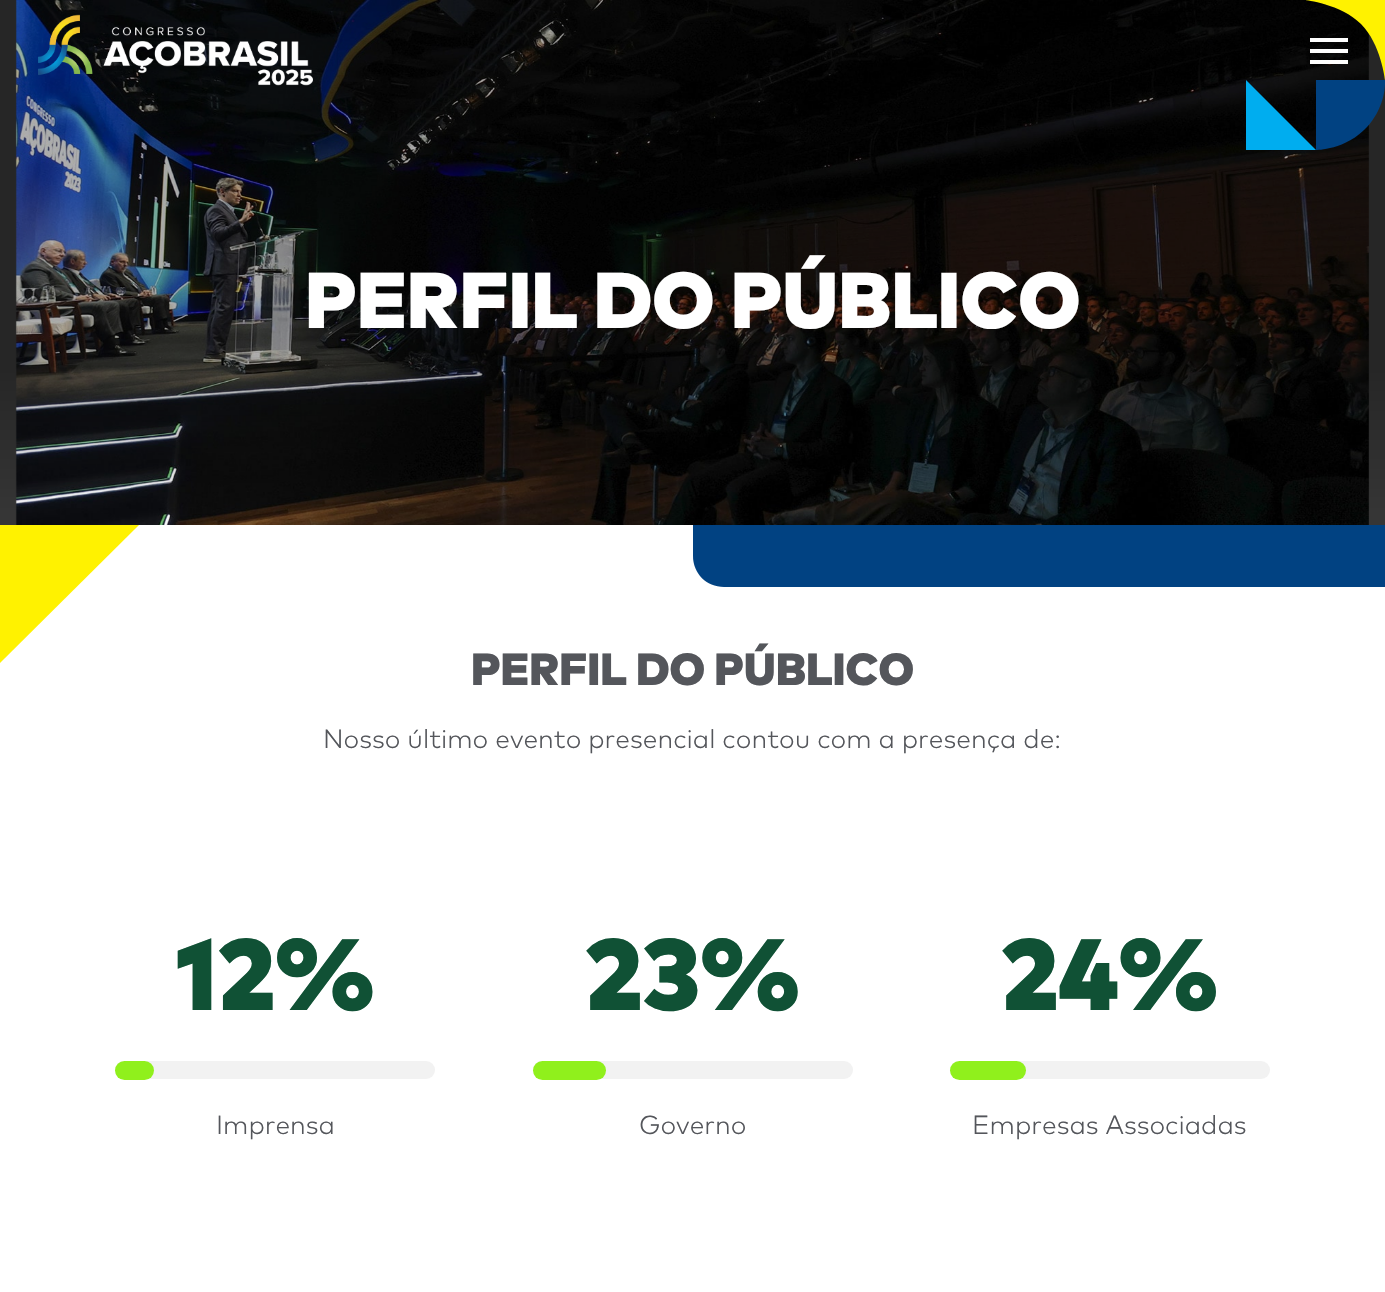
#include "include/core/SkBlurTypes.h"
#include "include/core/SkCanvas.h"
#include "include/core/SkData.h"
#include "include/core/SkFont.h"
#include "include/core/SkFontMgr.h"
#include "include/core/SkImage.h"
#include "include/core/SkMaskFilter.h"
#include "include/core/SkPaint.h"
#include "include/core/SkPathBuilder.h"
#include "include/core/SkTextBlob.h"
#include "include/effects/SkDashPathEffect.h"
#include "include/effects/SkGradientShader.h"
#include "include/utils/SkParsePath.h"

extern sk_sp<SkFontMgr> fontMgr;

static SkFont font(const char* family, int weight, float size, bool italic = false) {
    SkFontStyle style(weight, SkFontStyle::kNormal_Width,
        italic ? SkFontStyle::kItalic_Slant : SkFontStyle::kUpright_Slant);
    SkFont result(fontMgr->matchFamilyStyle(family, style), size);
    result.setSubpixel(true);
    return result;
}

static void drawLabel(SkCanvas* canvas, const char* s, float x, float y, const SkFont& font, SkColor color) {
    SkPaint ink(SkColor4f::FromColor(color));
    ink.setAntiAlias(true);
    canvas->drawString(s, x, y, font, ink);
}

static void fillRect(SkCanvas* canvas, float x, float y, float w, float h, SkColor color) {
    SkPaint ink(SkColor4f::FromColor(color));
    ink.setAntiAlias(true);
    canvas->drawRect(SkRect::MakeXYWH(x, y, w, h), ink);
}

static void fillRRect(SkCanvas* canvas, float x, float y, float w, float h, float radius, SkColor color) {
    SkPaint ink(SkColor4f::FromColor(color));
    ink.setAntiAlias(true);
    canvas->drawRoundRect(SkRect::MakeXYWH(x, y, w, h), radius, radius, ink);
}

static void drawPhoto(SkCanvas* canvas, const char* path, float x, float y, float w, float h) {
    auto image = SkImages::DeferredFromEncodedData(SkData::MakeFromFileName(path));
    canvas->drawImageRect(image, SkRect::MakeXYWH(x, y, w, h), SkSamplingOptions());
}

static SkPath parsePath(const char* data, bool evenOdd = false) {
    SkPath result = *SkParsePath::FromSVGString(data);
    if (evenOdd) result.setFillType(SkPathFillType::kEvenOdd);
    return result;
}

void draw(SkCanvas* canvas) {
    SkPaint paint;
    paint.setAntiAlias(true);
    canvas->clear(0xFFFFFFFF);
    fillRect(canvas, 0, 0, 1385, 525, 0xFF363636);
    drawPhoto(canvas, "assets/img2.png", 15, 0, 1354, 525);
    {
        const SkColor colors[] = {0x4D000000, 0x4D000000, 0x00000000};
        const float stops[] = {0, 0.7f, 1};
        const SkPoint ends[] = {{693, 0}, {693, 525}};
        paint.setShader(SkGradientShader::MakeLinear(ends, colors, stops, 3, SkTileMode::kClamp));
        paint.setAlpha(255);
    }
    canvas->drawRect(SkRect::MakeXYWH(0, 0, 1385, 510), paint);
    drawPhoto(canvas, "assets/img1.png", 38, 14, 275, 72);
    paint.setShader(nullptr);
    paint.setColor(0xFFFFF200);
    canvas->drawPath(parsePath("M1385 0V80C1385 80 1381 44 1361 24C1341 4 1305 0 1305 0Z"), paint);
    fillRect(canvas, 1310, 49, 38, 4, 0xFFFFFFFF);
    fillRect(canvas, 1310, 38, 38, 4, 0xFFFFFFFF);
    fillRect(canvas, 1310, 60, 38, 4, 0xFFFFFFFF);
    paint.setColor(0xFF014282);
    canvas->drawPath(parsePath("M1316 80V150C1316 150 1346 150 1367 127C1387 105 1385 80 1385 80Z"), paint);
    paint.setColor(0xFF00ADEF);
    canvas->drawPath(parsePath("M1246 80V150H1316Z"), paint);
    SkFont font1 = font("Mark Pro", 900, 78.75f);
    drawLabel(canvas, "PERFIL DO PÚBLICO", 305, 328, font1, 0xFFFFFFFF);
    paint.setColor(0xFFFFF200);
    canvas->drawPath(parsePath("M0 525V663L139 525Z"), paint);
    paint.setColor(0xFF014282);
    canvas->drawPath(parsePath("M693 525H1385V587H724C706 587 693 573 693 556Z"), paint);
    SkFont font2 = font("Mark Pro", 900, 45);
    drawLabel(canvas, "PERFIL DO PÚBLICO", 471, 685, font2, 0xFF54565B);
    SkFont font3 = font("Mark Pro", 300, 26.25f);
    drawLabel(canvas, "Nosso último evento presencial contou com a presença de:", 323, 748, font3, 0xFF54565B);
    SkFont font4 = font("Mark Pro", 900, 101);
    drawLabel(canvas, "12%", 176, 1010, font4, 0xFF105135);
    fillRRect(canvas, 115, 1061, 320, 18, 9, 0xFFF2F2F2);
    fillRRect(canvas, 115, 1061, 39, 19, 9.5f, 0xFF90F01C);
    drawLabel(canvas, "Imprensa", 216, 1134, font3, 0xFF54565B);
    drawLabel(canvas, "23%", 584, 1010, font4, 0xFF105135);
    fillRRect(canvas, 533, 1061, 320, 18, 9, 0xFFF2F2F2);
    fillRRect(canvas, 533, 1061, 73, 19, 9.5f, 0xFF90F01C);
    drawLabel(canvas, "Governo", 639, 1134, font3, 0xFF54565B);
    drawLabel(canvas, "24%", 1000, 1010, font4, 0xFF105135);
    fillRRect(canvas, 950, 1061, 320, 18, 9, 0xFFF2F2F2);
    fillRRect(canvas, 950, 1061, 76, 19, 9.5f, 0xFF90F01C);
    drawLabel(canvas, "Empresas Associadas", 972, 1134, font3, 0xFF54565B);
}
